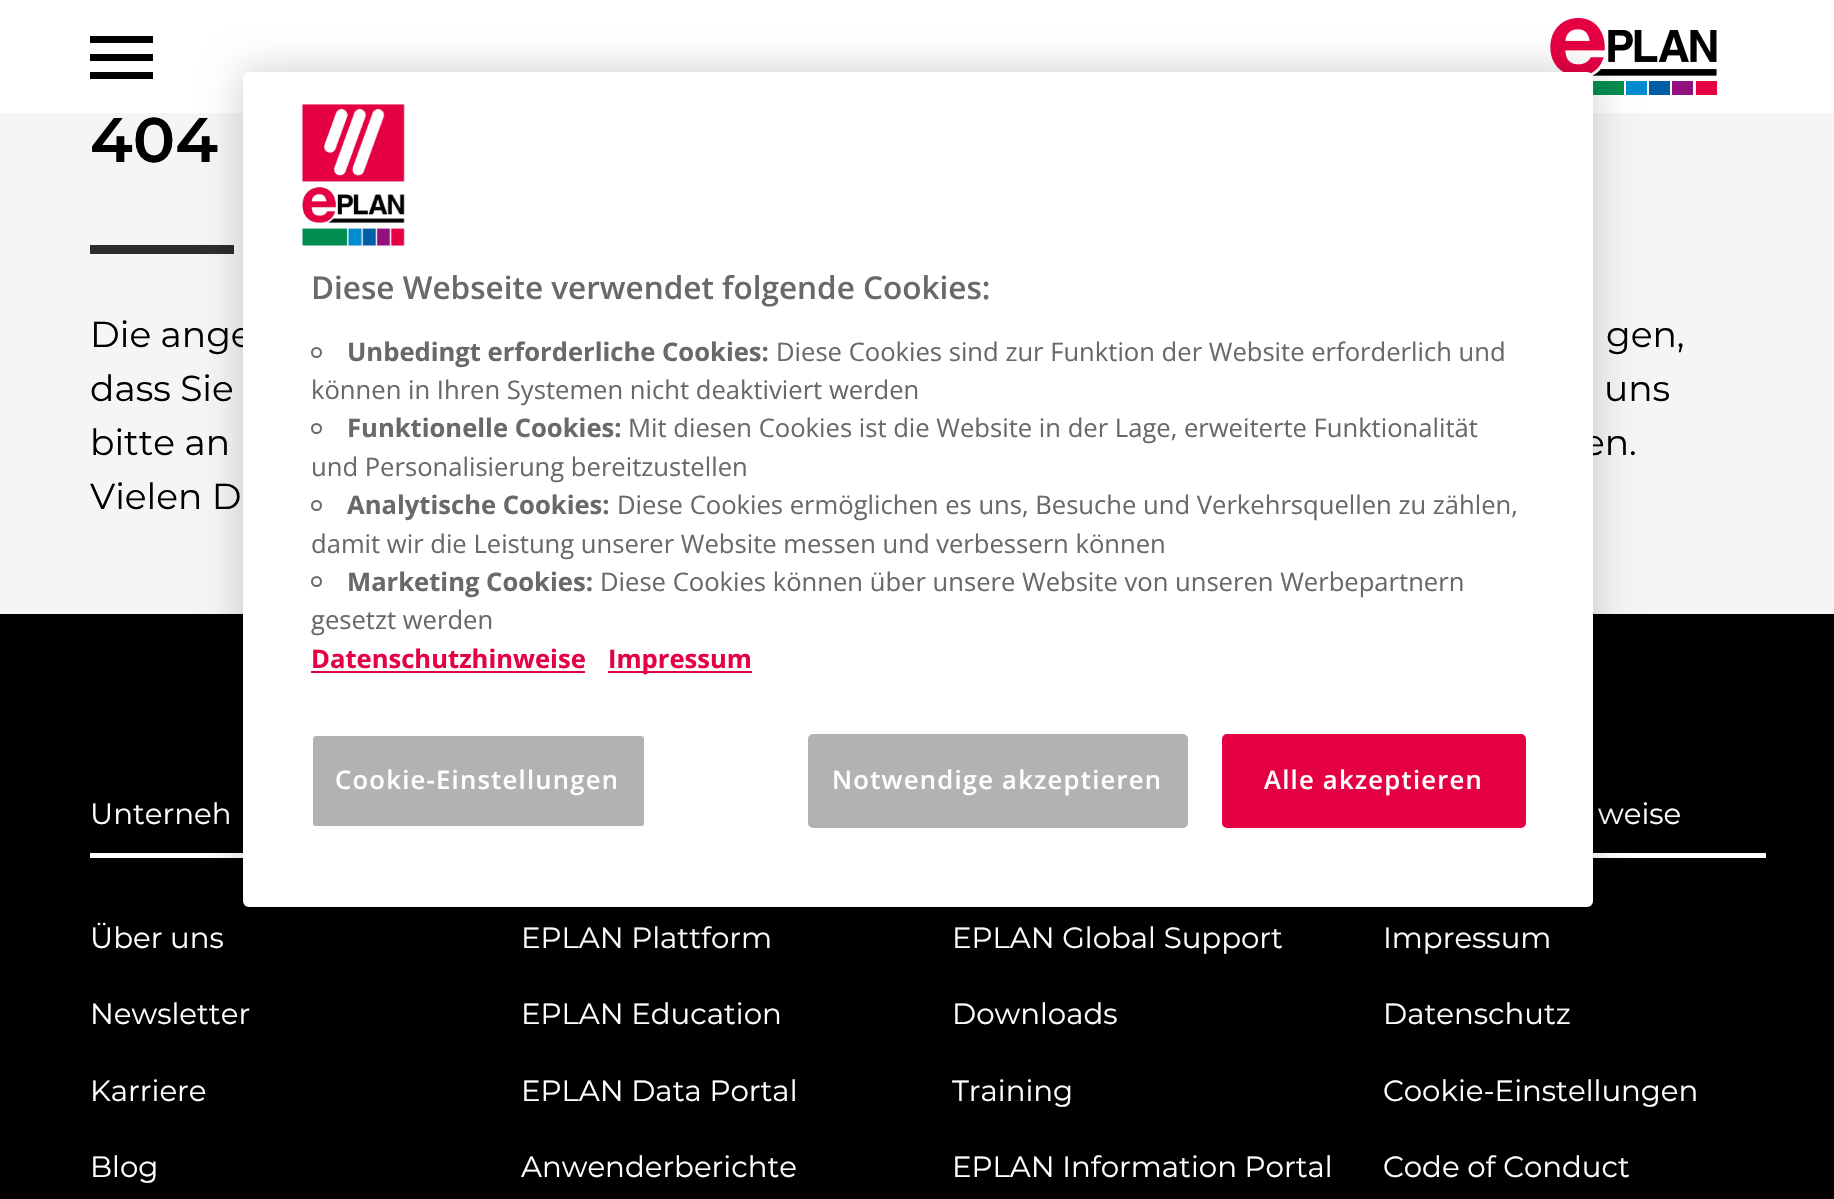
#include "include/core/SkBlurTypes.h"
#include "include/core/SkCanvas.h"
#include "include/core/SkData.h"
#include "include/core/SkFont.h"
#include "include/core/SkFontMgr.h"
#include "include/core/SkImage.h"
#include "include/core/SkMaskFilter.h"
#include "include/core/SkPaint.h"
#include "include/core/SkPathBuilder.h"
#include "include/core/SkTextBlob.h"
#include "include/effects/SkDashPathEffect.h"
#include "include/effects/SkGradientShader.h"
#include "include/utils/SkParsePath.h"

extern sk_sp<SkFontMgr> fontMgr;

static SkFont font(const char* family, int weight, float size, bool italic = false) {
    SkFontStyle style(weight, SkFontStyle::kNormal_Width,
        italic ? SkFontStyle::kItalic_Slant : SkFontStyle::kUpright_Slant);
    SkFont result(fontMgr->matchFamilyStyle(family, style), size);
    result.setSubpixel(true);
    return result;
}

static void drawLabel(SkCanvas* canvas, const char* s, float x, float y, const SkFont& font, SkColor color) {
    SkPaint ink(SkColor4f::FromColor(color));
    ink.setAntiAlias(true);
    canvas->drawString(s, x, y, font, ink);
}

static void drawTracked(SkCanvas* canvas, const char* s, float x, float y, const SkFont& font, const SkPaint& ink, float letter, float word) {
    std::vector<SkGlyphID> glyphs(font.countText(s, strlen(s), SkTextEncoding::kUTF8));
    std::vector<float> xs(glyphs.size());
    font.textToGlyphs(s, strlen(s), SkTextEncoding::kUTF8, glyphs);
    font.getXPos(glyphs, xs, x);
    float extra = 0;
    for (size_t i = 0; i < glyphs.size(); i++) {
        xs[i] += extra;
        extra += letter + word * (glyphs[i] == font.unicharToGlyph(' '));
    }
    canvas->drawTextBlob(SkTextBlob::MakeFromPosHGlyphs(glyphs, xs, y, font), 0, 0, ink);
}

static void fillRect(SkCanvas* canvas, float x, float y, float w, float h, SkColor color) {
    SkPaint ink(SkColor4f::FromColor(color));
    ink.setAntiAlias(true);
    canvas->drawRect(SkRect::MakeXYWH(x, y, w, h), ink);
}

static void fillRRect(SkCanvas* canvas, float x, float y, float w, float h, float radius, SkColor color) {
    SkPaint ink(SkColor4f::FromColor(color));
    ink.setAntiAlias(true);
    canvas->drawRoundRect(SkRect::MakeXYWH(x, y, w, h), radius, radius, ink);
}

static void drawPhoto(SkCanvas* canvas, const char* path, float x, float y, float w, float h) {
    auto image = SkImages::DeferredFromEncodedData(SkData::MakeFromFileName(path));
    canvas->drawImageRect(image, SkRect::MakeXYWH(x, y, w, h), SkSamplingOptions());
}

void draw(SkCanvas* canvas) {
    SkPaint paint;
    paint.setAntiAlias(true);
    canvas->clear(0xFF000000);
    fillRect(canvas, 0, 0, 1834, 113, 0xFFFFFFFF);
    fillRect(canvas, 90, 36, 63, 7, 0xFF000000);
    fillRect(canvas, 90, 54, 63, 7, 0xFF000000);
    fillRect(canvas, 90, 72, 63, 7, 0xFF000000);
    drawPhoto(canvas, "assets/img1.png", 1550, 18, 167, 77);
    fillRect(canvas, 0, 113, 1834, 501, 0xFFF5F5F7);
    SkFont font1 = font("Montserrat", 600, 63);
    drawLabel(canvas, "404", 90, 162, font1, 0xFF000000);
    fillRect(canvas, 90, 245, 144, 9, 0xFF2D2D2D);
    SkFont font2 = font("Montserrat", 400, 36);
    drawLabel(canvas, "Die ange", 90, 347, font2, 0xFF000000);
    drawLabel(canvas, "gen,", 1606, 347, font2, 0xFF000000);
    drawLabel(canvas, "dass Sie", 90, 401, font2, 0xFF000000);
    drawLabel(canvas, "uns", 1604, 401, font2, 0xFF000000);
    drawLabel(canvas, "bitte an", 90, 455, font2, 0xFF000000);
    drawLabel(canvas, "en.", 1583, 455, font2, 0xFF000000);
    drawLabel(canvas, "Vielen D", 90, 509, font2, 0xFF000000);
    fillRect(canvas, 90, 853, 153, 5, 0xFFFFFFFF);
    SkFont font3 = font("Montserrat", 400, 29.25f);
    drawLabel(canvas, "Unterneh", 90, 824, font3, 0xFFFFFFFF);
    drawLabel(canvas, "Über uns", 90, 948, font3, 0xFFFFFFFF);
    drawLabel(canvas, "Newsletter", 90, 1024, font3, 0xFFFFFFFF);
    drawLabel(canvas, "Karriere", 90, 1101, font3, 0xFFFFFFFF);
    drawLabel(canvas, "Blog", 90, 1177, font3, 0xFFFFFFFF);
    drawLabel(canvas, "EPLAN Plattform", 521, 948, font3, 0xFFFFFFFF);
    drawLabel(canvas, "EPLAN Education", 521, 1024, font3, 0xFFFFFFFF);
    drawLabel(canvas, "EPLAN Data Portal", 521, 1101, font3, 0xFFFFFFFF);
    drawLabel(canvas, "Anwenderberichte", 521, 1177, font3, 0xFFFFFFFF);
    drawLabel(canvas, "EPLAN Global Support", 952, 948, font3, 0xFFFFFFFF);
    drawLabel(canvas, "Downloads", 952, 1024, font3, 0xFFFFFFFF);
    drawLabel(canvas, "Training", 952, 1101, font3, 0xFFFFFFFF);
    drawLabel(canvas, "EPLAN Information Portal", 952, 1177, font3, 0xFFFFFFFF);
    fillRect(canvas, 1593, 853, 173, 5, 0xFFFFFFFF);
    drawLabel(canvas, "weise", 1598, 824, font3, 0xFFFFFFFF);
    drawLabel(canvas, "Impressum", 1383, 948, font3, 0xFFFFFFFF);
    drawLabel(canvas, "Datenschutz", 1383, 1024, font3, 0xFFFFFFFF);
    drawLabel(canvas, "Cookie-Einstellungen", 1383, 1101, font3, 0xFFFFFFFF);
    drawLabel(canvas, "Code of Conduct", 1383, 1177, font3, 0xFFFFFFFF);
    paint.setColor(0x33000000);
    paint.setMaskFilter(SkMaskFilter::MakeBlur(kNormal_SkBlurStyle, 20));
    canvas->drawRoundRect(SkRect::MakeXYWH(243, 72, 1350, 835), 6, 6, paint);
    paint.setMaskFilter(nullptr);
    fillRRect(canvas, 243, 72, 1350, 835, 6, 0xFFFFFFFF);
    drawPhoto(canvas, "assets/img2.png", 302, 104, 103, 142);
    SkFont font4 = font("Open Sans", 600, 31.5f);
    drawLabel(canvas, "Diese Webseite verwendet folgende Cookies:", 311, 299, font4, 0xFF696969);
    paint.setStroke(true);
    paint.setStrokeWidth(2);
    paint.setColor(0xFF696969);
    canvas->drawCircle(316.5f, 352.5f, 4.5f, paint);
    SkFont font5 = font("Open Sans", 700, 25.6f);
    drawLabel(canvas, "Unbedingt erforderliche Cookies:", 347, 361, font5, 0xFF696969);
    SkFont font6 = font("Open Sans", 400, 25.6f);
    drawLabel(canvas, "Diese Cookies sind zur Funktion der Website erforderlich und", 776, 361, font6, 0xFF696969);
    drawLabel(canvas, "können in Ihren Systemen nicht deaktiviert werden", 311, 399, font6, 0xFF696969);
    canvas->drawCircle(316.5f, 428.5f, 4.5f, paint);
    drawLabel(canvas, "Funktionelle Cookies:", 347, 437, font5, 0xFF696969);
    drawLabel(canvas, "Mit diesen Cookies ist die Website in der Lage, erweiterte Funktionalität", 628, 437, font6, 0xFF696969);
    drawLabel(canvas, "und Personalisierung bereitzustellen", 311, 476, font6, 0xFF696969);
    canvas->drawCircle(316.5f, 505.5f, 4.5f, paint);
    drawLabel(canvas, "Analytische Cookies:", 347, 514, font5, 0xFF696969);
    drawLabel(canvas, "Diese Cookies ermöglichen es uns, Besuche und Verkehrsquellen zu zählen,", 617, 514, font6, 0xFF696969);
    drawLabel(canvas, "damit wir die Leistung unserer Website messen und verbessern können", 311, 553, font6, 0xFF696969);
    canvas->drawCircle(316.5f, 581.5f, 4.5f, paint);
    drawLabel(canvas, "Marketing Cookies:", 347, 591, font5, 0xFF696969);
    drawLabel(canvas, "Diese Cookies können über unsere Website von unseren Werbepartnern", 600, 591, font6, 0xFF696969);
    drawLabel(canvas, "gesetzt werden", 311, 629, font6, 0xFF696969);
    drawLabel(canvas, "Datenschutzhinweise", 311, 668, font5, 0xFFE50043);
    fillRect(canvas, 311, 671, 274, 2, 0xFFE50043);
    fillRect(canvas, 608, 671, 144, 2, 0xFFE50043);
    drawLabel(canvas, "Impressum", 608, 668, font5, 0xFFE50043);
    paint.setStroke(false);
    paint.setColor(0xFFB1B2B3);
    canvas->drawRoundRect(SkRect::MakeXYWH(312, 735, 333, 92), 4, 4, paint);
    paint.setStroke(true);
    paint.setColor(0xFFFFFFFF);
    canvas->drawRoundRect(SkRect::MakeXYWH(312, 735, 333, 92), 4, 4, paint);
    SkFont font7 = font("Open Sans", 600, 25.6f);
    paint.setStroke(false);
    drawTracked(canvas, "Cookie-Einstellungen", 335, 789, font7, paint, 1.25f, 0);
    paint.setColor(0xFFB1B2B3);
    canvas->drawRoundRect(SkRect::MakeXYWH(809, 735, 378, 92), 4, 4, paint);
    paint.setStroke(true);
    canvas->drawRoundRect(SkRect::MakeXYWH(809, 735, 378, 92), 4, 4, paint);
    paint.setStroke(false);
    paint.setColor(0xFFFFFFFF);
    drawTracked(canvas, "Notwendige akzeptieren", 832, 789, font7, paint, 1.25f, 0);
    paint.setColor(0xFFE50043);
    canvas->drawRoundRect(SkRect::MakeXYWH(1223, 735, 302, 92), 4, 4, paint);
    paint.setStroke(true);
    canvas->drawRoundRect(SkRect::MakeXYWH(1223, 735, 302, 92), 4, 4, paint);
    paint.setStroke(false);
    paint.setColor(0xFFFFFFFF);
    drawTracked(canvas, "Alle akzeptieren", 1264, 789, font7, paint, 1.25f, 0);
}
